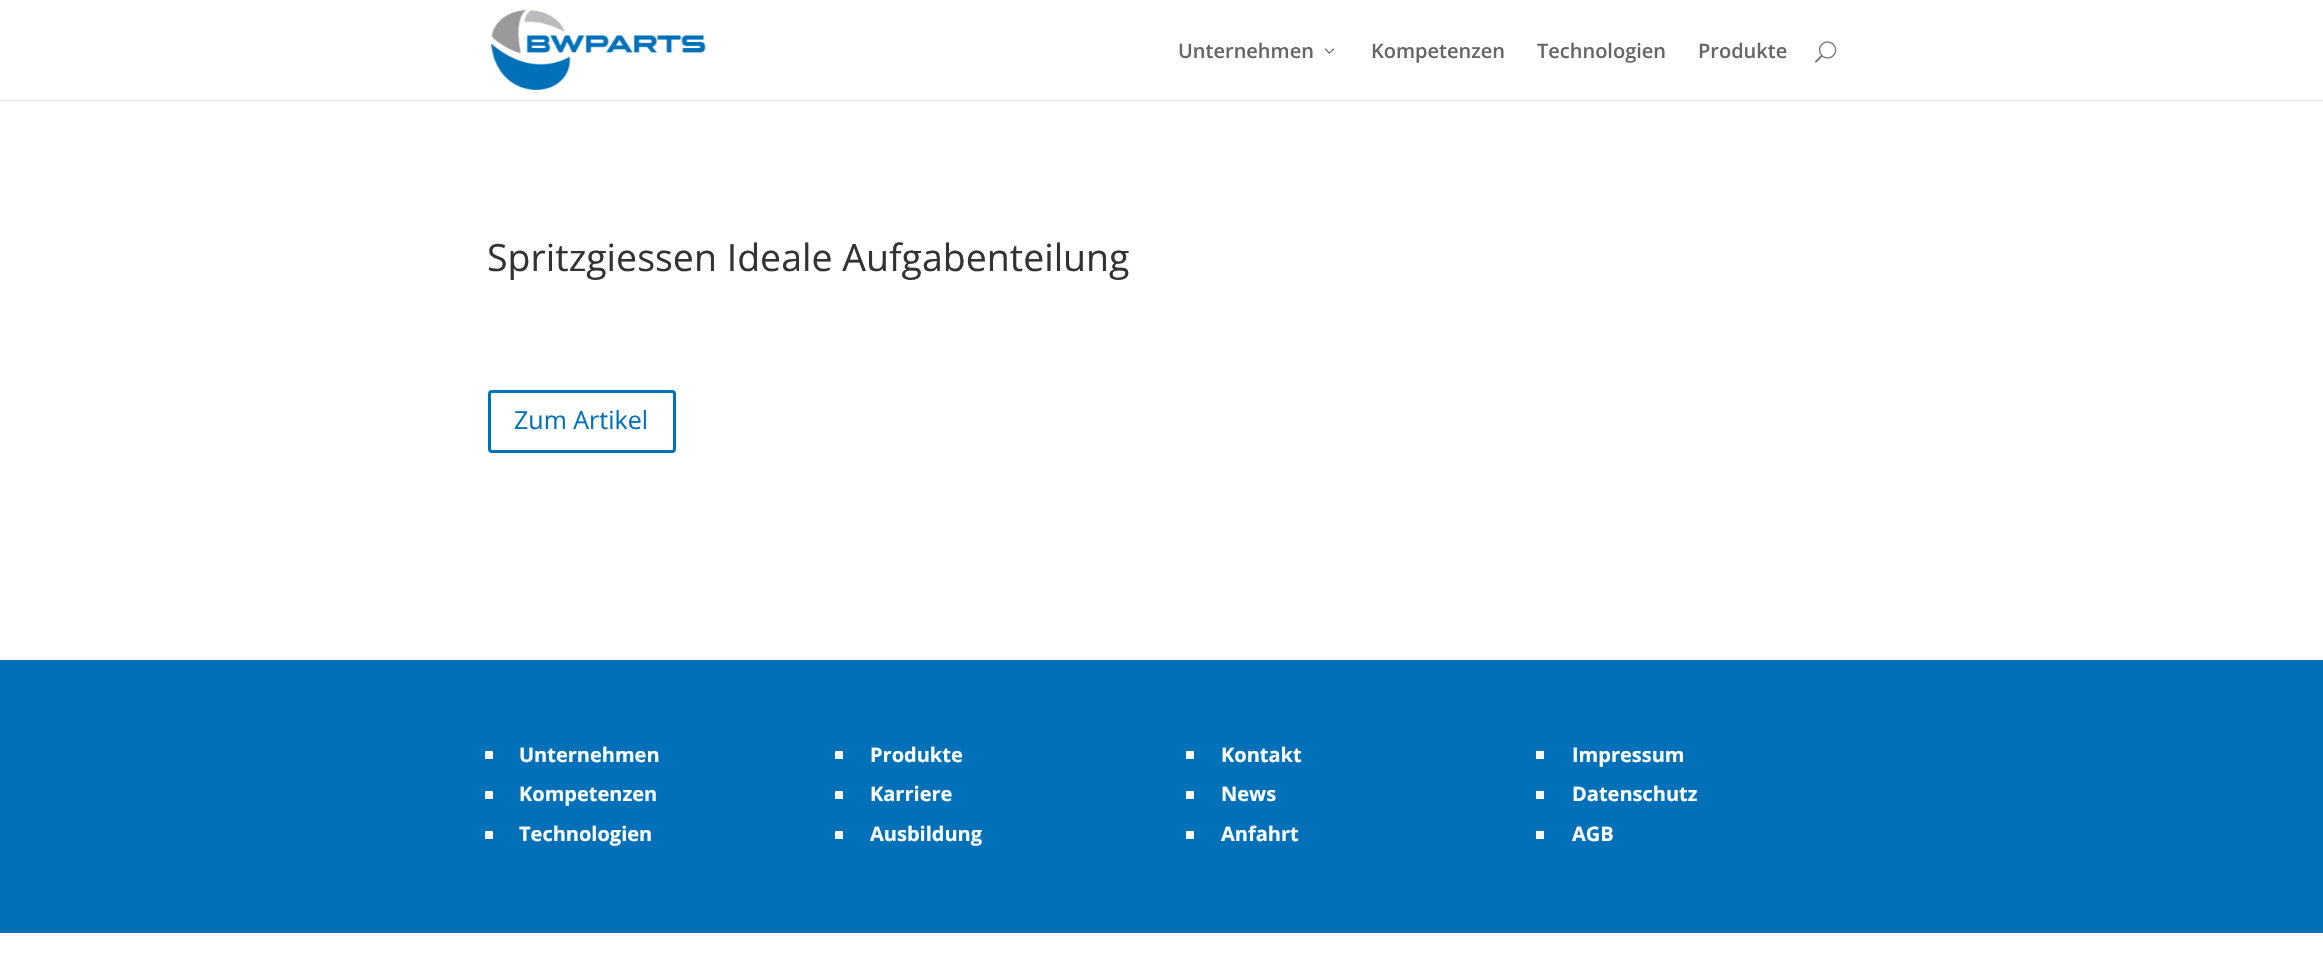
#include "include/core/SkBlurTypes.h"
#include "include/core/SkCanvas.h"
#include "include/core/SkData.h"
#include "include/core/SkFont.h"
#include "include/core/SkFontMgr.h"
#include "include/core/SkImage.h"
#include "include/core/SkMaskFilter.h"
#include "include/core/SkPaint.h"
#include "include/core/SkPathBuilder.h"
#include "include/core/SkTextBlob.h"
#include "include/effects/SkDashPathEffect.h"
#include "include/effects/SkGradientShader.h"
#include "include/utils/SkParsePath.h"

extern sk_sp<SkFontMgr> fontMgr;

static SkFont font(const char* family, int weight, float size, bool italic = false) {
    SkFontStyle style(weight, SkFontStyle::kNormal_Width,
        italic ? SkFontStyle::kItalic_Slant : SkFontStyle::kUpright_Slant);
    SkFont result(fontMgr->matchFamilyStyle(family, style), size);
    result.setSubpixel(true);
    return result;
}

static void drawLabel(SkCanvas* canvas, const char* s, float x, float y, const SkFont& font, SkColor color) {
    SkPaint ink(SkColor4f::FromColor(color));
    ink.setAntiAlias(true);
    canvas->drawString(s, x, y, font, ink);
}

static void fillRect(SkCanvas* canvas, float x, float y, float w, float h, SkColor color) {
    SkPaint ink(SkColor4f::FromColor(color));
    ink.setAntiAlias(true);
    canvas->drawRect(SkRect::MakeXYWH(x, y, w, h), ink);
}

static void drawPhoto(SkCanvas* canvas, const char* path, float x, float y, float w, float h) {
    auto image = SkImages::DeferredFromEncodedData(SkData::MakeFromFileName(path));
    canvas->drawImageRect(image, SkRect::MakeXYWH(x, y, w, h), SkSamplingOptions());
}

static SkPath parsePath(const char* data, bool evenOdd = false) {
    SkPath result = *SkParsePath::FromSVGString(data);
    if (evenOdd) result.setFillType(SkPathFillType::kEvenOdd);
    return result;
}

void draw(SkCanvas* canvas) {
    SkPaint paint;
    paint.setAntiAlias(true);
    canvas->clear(0xFFFFFFFF);
    paint.setColor(0xFFE6E6E6);
    canvas->drawPath(parsePath("M0 100V101H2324V1V100Z"), paint);
    drawPhoto(canvas, "assets/img1.png", 491, 10, 215, 80);
    SkFont font1 = font("Open Sans", 600, 20);
    drawLabel(canvas, "Unternehmen", 1178, 58, font1, 0xFF666666);
    drawPhoto(canvas, "assets/img2.png", 1324, 48, 10, 6);
    drawLabel(canvas, "Kompetenzen", 1371, 58, font1, 0xFF666666);
    drawLabel(canvas, "Technologien", 1537, 58, font1, 0xFF666666);
    drawLabel(canvas, "Produkte", 1698, 58, font1, 0xFF666666);
    drawPhoto(canvas, "assets/img3.png", 1815, 41, 22, 22);
    SkFont font2 = font("Open Sans", 400, 37.5f);
    drawLabel(canvas, "Spritzgiessen Ideale Aufgabenteilung", 487, 271, font2, 0xFF333333);
    paint.setStroke(true);
    paint.setStrokeWidth(3);
    paint.setColor(0xFF0071B9);
    canvas->drawRoundRect(SkRect::MakeXYWH(489.5f, 391.5f, 185, 60), 2.5f, 2.5f, paint);
    SkFont font3 = font("Open Sans", 400, 25);
    drawLabel(canvas, "Zum Artikel", 514, 429, font3, 0xFF0071B9);
    fillRect(canvas, 0, 660, 2323, 273, 0xFF0071B9);
    fillRect(canvas, 485, 751, 8, 8, 0xFFFFFFFF);
    SkFont font4 = font("Open Sans", 700, 20);
    drawLabel(canvas, "Unternehmen", 519, 762, font4, 0xFFFFFFFF);
    fillRect(canvas, 485, 791, 8, 8, 0xFFFFFFFF);
    drawLabel(canvas, "Kompetenzen", 519, 801, font4, 0xFFFFFFFF);
    fillRect(canvas, 485, 831, 8, 8, 0xFFFFFFFF);
    drawLabel(canvas, "Technologien", 519, 841, font4, 0xFFFFFFFF);
    fillRect(canvas, 835, 751, 8, 8, 0xFFFFFFFF);
    drawLabel(canvas, "Produkte", 870, 762, font4, 0xFFFFFFFF);
    fillRect(canvas, 835, 791, 8, 8, 0xFFFFFFFF);
    drawLabel(canvas, "Karriere", 870, 801, font4, 0xFFFFFFFF);
    fillRect(canvas, 835, 831, 8, 8, 0xFFFFFFFF);
    drawLabel(canvas, "Ausbildung", 870, 841, font4, 0xFFFFFFFF);
    fillRect(canvas, 1186, 751, 8, 8, 0xFFFFFFFF);
    drawLabel(canvas, "Kontakt", 1221, 762, font4, 0xFFFFFFFF);
    fillRect(canvas, 1186, 791, 8, 8, 0xFFFFFFFF);
    drawLabel(canvas, "News", 1221, 801, font4, 0xFFFFFFFF);
    fillRect(canvas, 1186, 831, 8, 8, 0xFFFFFFFF);
    drawLabel(canvas, "Anfahrt", 1221, 841, font4, 0xFFFFFFFF);
    fillRect(canvas, 1536, 751, 8, 8, 0xFFFFFFFF);
    drawLabel(canvas, "Impressum", 1572, 762, font4, 0xFFFFFFFF);
    fillRect(canvas, 1536, 791, 8, 8, 0xFFFFFFFF);
    drawLabel(canvas, "Datenschutz", 1572, 801, font4, 0xFFFFFFFF);
    fillRect(canvas, 1536, 831, 8, 8, 0xFFFFFFFF);
    drawLabel(canvas, "AGB", 1572, 841, font4, 0xFFFFFFFF);
}
